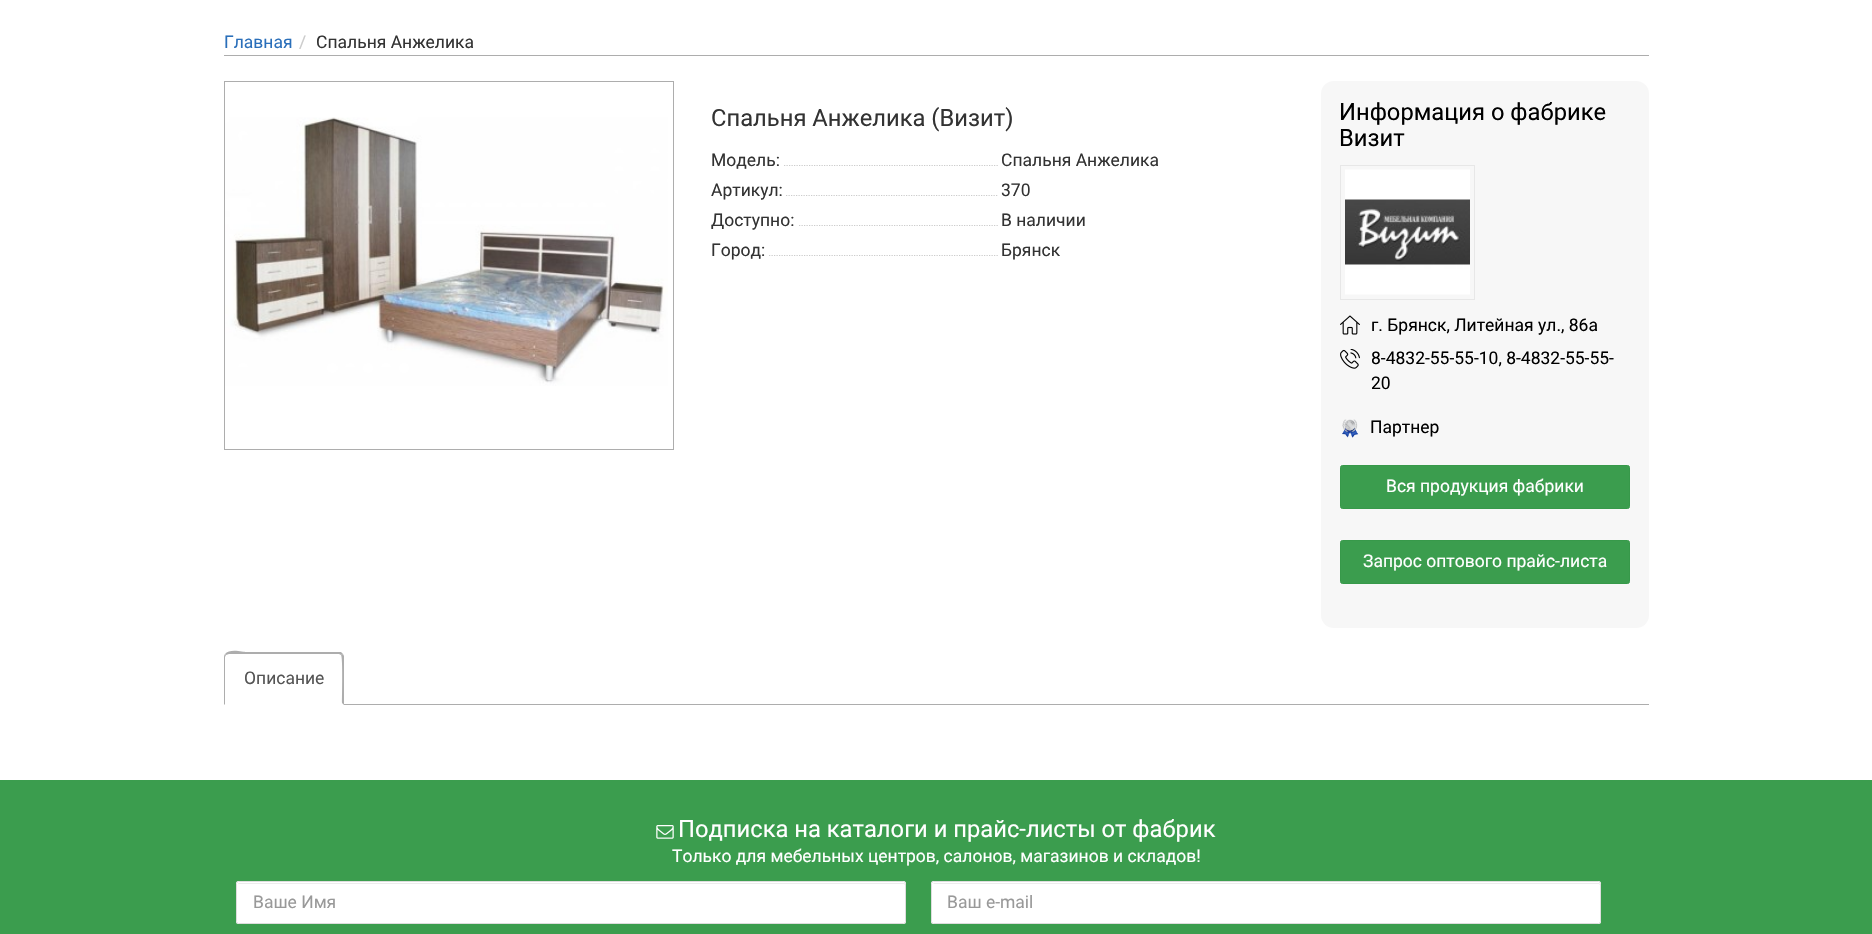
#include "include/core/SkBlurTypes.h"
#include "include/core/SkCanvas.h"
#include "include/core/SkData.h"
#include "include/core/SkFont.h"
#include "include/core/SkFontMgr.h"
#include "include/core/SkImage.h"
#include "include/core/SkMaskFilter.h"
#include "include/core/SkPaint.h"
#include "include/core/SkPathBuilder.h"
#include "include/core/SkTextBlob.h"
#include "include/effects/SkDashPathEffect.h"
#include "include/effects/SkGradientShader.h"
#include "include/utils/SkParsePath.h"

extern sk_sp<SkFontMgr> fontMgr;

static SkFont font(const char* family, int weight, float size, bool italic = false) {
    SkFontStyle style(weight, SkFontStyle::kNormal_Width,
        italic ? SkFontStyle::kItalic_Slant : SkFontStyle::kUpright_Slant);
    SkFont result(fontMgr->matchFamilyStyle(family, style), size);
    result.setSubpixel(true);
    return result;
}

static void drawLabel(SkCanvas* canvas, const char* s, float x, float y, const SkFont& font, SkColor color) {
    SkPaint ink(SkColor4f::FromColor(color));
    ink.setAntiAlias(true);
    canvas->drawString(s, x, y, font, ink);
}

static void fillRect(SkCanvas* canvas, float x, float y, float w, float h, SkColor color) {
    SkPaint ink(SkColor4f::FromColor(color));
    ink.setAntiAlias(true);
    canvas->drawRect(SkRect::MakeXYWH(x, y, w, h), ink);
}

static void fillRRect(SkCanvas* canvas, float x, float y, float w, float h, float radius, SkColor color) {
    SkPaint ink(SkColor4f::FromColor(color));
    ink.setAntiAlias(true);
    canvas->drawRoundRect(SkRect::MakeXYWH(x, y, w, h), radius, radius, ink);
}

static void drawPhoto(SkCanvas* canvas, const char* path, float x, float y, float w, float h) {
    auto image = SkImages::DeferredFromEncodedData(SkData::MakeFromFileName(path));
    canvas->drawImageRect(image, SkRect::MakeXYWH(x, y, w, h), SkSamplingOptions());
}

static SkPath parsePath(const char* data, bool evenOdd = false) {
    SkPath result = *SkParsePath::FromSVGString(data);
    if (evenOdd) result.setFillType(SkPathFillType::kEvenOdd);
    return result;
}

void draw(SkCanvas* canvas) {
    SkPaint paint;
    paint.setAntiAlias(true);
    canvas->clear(0xFFFFFFFF);
    fillRect(canvas, 224, 55, 1425, 1, 0xFFADADAD);
    SkFont font1 = font("Roboto", 400, 17.5f);
    drawLabel(canvas, "Главная", 224, 48, font1, 0xFF2A6FBA);
    drawLabel(canvas, "/", 299, 48, font1, 0xFFCCCCCC);
    drawLabel(canvas, "Спальня Анжелика", 316, 48, font1, 0xFF333333);
    paint.setStroke(true);
    paint.setStrokeWidth(1);
    paint.setColor(0xFFADADAD);
    canvas->drawRect(SkRect::MakeXYWH(224.5f, 81.5f, 449, 368), paint);
    drawPhoto(canvas, "assets/img1.png", 225, 117, 443, 269);
    SkFont font2 = font("Roboto", 400, 23.75f);
    drawLabel(canvas, "Спальня Анжелика (Визит)", 711, 126, font2, 0xFF333333);
    drawLabel(canvas, "Модель:", 711, 166, font1, 0xFF333333);
    canvas->save();
    canvas->clipRect(SkRect::MakeXYWH(711, 145, 287, 30));
    paint.setStrokeWidth(1.2f);
    paint.setColor(0xFFCCCCCC);
    paint.setPathEffect(SkDashPathEffect::Make({{1.25f, 1.25f}}, 0));
    canvas->drawPath(parsePath("M784 165.5H1070"), paint);
    paint.setPathEffect(nullptr);
    canvas->restore();
    drawLabel(canvas, "Спальня Анжелика", 1001, 166, font1, 0xFF333333);
    drawLabel(canvas, "Артикул:", 711, 196, font1, 0xFF333333);
    canvas->save();
    canvas->clipRect(SkRect::MakeXYWH(711, 175, 287, 30));
    paint.setPathEffect(SkDashPathEffect::Make({{1.25f, 1.25f}}, 0));
    canvas->drawPath(parsePath("M786 195.5H1072.5"), paint);
    paint.setPathEffect(nullptr);
    canvas->restore();
    drawLabel(canvas, "370", 1001, 196, font1, 0xFF333333);
    drawLabel(canvas, "Доступно:", 711, 226, font1, 0xFF333333);
    canvas->save();
    canvas->clipRect(SkRect::MakeXYWH(711, 205, 287, 30));
    paint.setPathEffect(SkDashPathEffect::Make({{1.25f, 1.25f}}, 0));
    canvas->drawPath(parsePath("M799 225.5H1084"), paint);
    paint.setPathEffect(nullptr);
    canvas->restore();
    drawLabel(canvas, "В наличии", 1001, 226, font1, 0xFF333333);
    drawLabel(canvas, "Город:", 711, 256, font1, 0xFF333333);
    canvas->save();
    canvas->clipRect(SkRect::MakeXYWH(711, 235, 287, 30));
    paint.setPathEffect(SkDashPathEffect::Make({{1.25f, 1.25f}}, 0));
    canvas->drawPath(parsePath("M769 255.5H1055"), paint);
    paint.setPathEffect(nullptr);
    canvas->restore();
    drawLabel(canvas, "Брянск", 1001, 256, font1, 0xFF333333);
    fillRRect(canvas, 1321, 81, 328, 547, 13, 0xFFF7F7F7);
    drawLabel(canvas, "Информация о фабрике", 1339, 120, font2, 0xFF000000);
    drawLabel(canvas, "Визит", 1339, 146, font2, 0xFF000000);
    paint.setStrokeWidth(1);
    paint.setColor(0xFFE7E7E7);
    canvas->drawRect(SkRect::MakeXYWH(1340.5f, 165.5f, 134, 134), paint);
    drawPhoto(canvas, "assets/img2.png", 1345, 169, 125, 126);
    drawPhoto(canvas, "assets/img3.png", 1340, 315, 20, 20);
    drawLabel(canvas, "г. Брянск, Литейная ул., 86а", 1371, 331, font1, 0xFF000000);
    drawPhoto(canvas, "assets/img4.png", 1340, 349, 20, 20);
    drawLabel(canvas, "8-4832-55-55-10, 8-4832-55-55-", 1371, 364, font1, 0xFF000000);
    drawLabel(canvas, "20", 1371, 389, font1, 0xFF000000);
    drawPhoto(canvas, "assets/img5.png", 1342, 419, 17, 19);
    drawLabel(canvas, "Партнер", 1370, 433, font1, 0xFF000000);
    paint.setStroke(false);
    paint.setColor(0xFF3B9D4E);
    canvas->drawRoundRect(SkRect::MakeXYWH(1340.5f, 465.5f, 289, 43), 2, 2, paint);
    paint.setStroke(true);
    paint.setColor(0xFF37994A);
    canvas->drawRoundRect(SkRect::MakeXYWH(1340.5f, 465.5f, 289, 43), 2, 2, paint);
    drawLabel(canvas, "Вся продукция фабрики", 1386, 492, font1, 0xFFFFFFFF);
    paint.setStroke(false);
    paint.setColor(0xFF3B9D4E);
    canvas->drawRoundRect(SkRect::MakeXYWH(1340.5f, 540.5f, 289, 43), 2, 2, paint);
    paint.setStroke(true);
    paint.setColor(0xFF37994A);
    canvas->drawRoundRect(SkRect::MakeXYWH(1340.5f, 540.5f, 289, 43), 2, 2, paint);
    drawLabel(canvas, "Запрос оптового прайс-листа", 1363, 567, font1, 0xFFFFFFFF);
    fillRect(canvas, 344, 704, 1305, 1, 0xFFADADAD);
    paint.setStroke(false);
    paint.setColor(0xFFADADAD);
    canvas->drawPath(parsePath("M229 654L226 655L225 654C229 648 244 652 246 652H341L343 654L341 655L339 654Z"), paint);
    canvas->drawPath(parsePath("M344 656V705L342 703C342 697 343 657 341 655L343 654Z"), paint);
    canvas->drawPath(parsePath("M224 705V658C224 657 224 655 225 654L226 655L225 657V704Z"), paint);
    drawLabel(canvas, "Описание", 244, 684, font1, 0xFF555555);
    fillRect(canvas, 0, 780, 1872, 154, 0xFF3B9D4E);
    drawPhoto(canvas, "assets/img6.png", 656, 825, 18, 14);
    drawLabel(canvas, "Подписка на каталоги и прайс-листы от фабрик", 678, 837, font2, 0xFFFFFFFF);
    drawLabel(canvas, "Только для мебельных центров, салонов, магазинов и складов!", 672, 862, font1, 0xFFFFFFFF);
    fillRRect(canvas, 236, 881, 670, 43, 2.5f, 0xFFFFFFFF);
    paint.setColor(0xFFECECEC);
    canvas->drawPath(parsePath("M239 884H904L905 885C905 884 905 883 904 883H239C238 883 238 884 238 885C238 884 238 884 239 884Z"), paint);
    paint.setStroke(true);
    paint.setColor(0xFFDDDDDD);
    canvas->drawRoundRect(SkRect::MakeXYWH(236.5f, 881.5f, 669, 42), 2, 2, paint);
    drawLabel(canvas, "Ваше Имя", 253, 908, font1, 0xFF999999);
    fillRRect(canvas, 931, 881, 670, 43, 2.5f, 0xFFFFFFFF);
    paint.setStroke(false);
    paint.setColor(0xFFECECEC);
    canvas->drawPath(parsePath("M934 884H1599L1600 885V884L1599 883H934L933 884Z"), paint);
    paint.setStroke(true);
    paint.setColor(0xFFDDDDDD);
    canvas->drawRoundRect(SkRect::MakeXYWH(931.5f, 881.5f, 669, 42), 2, 2, paint);
    drawLabel(canvas, "Ваш e-mail", 947, 908, font1, 0xFF999999);
}
